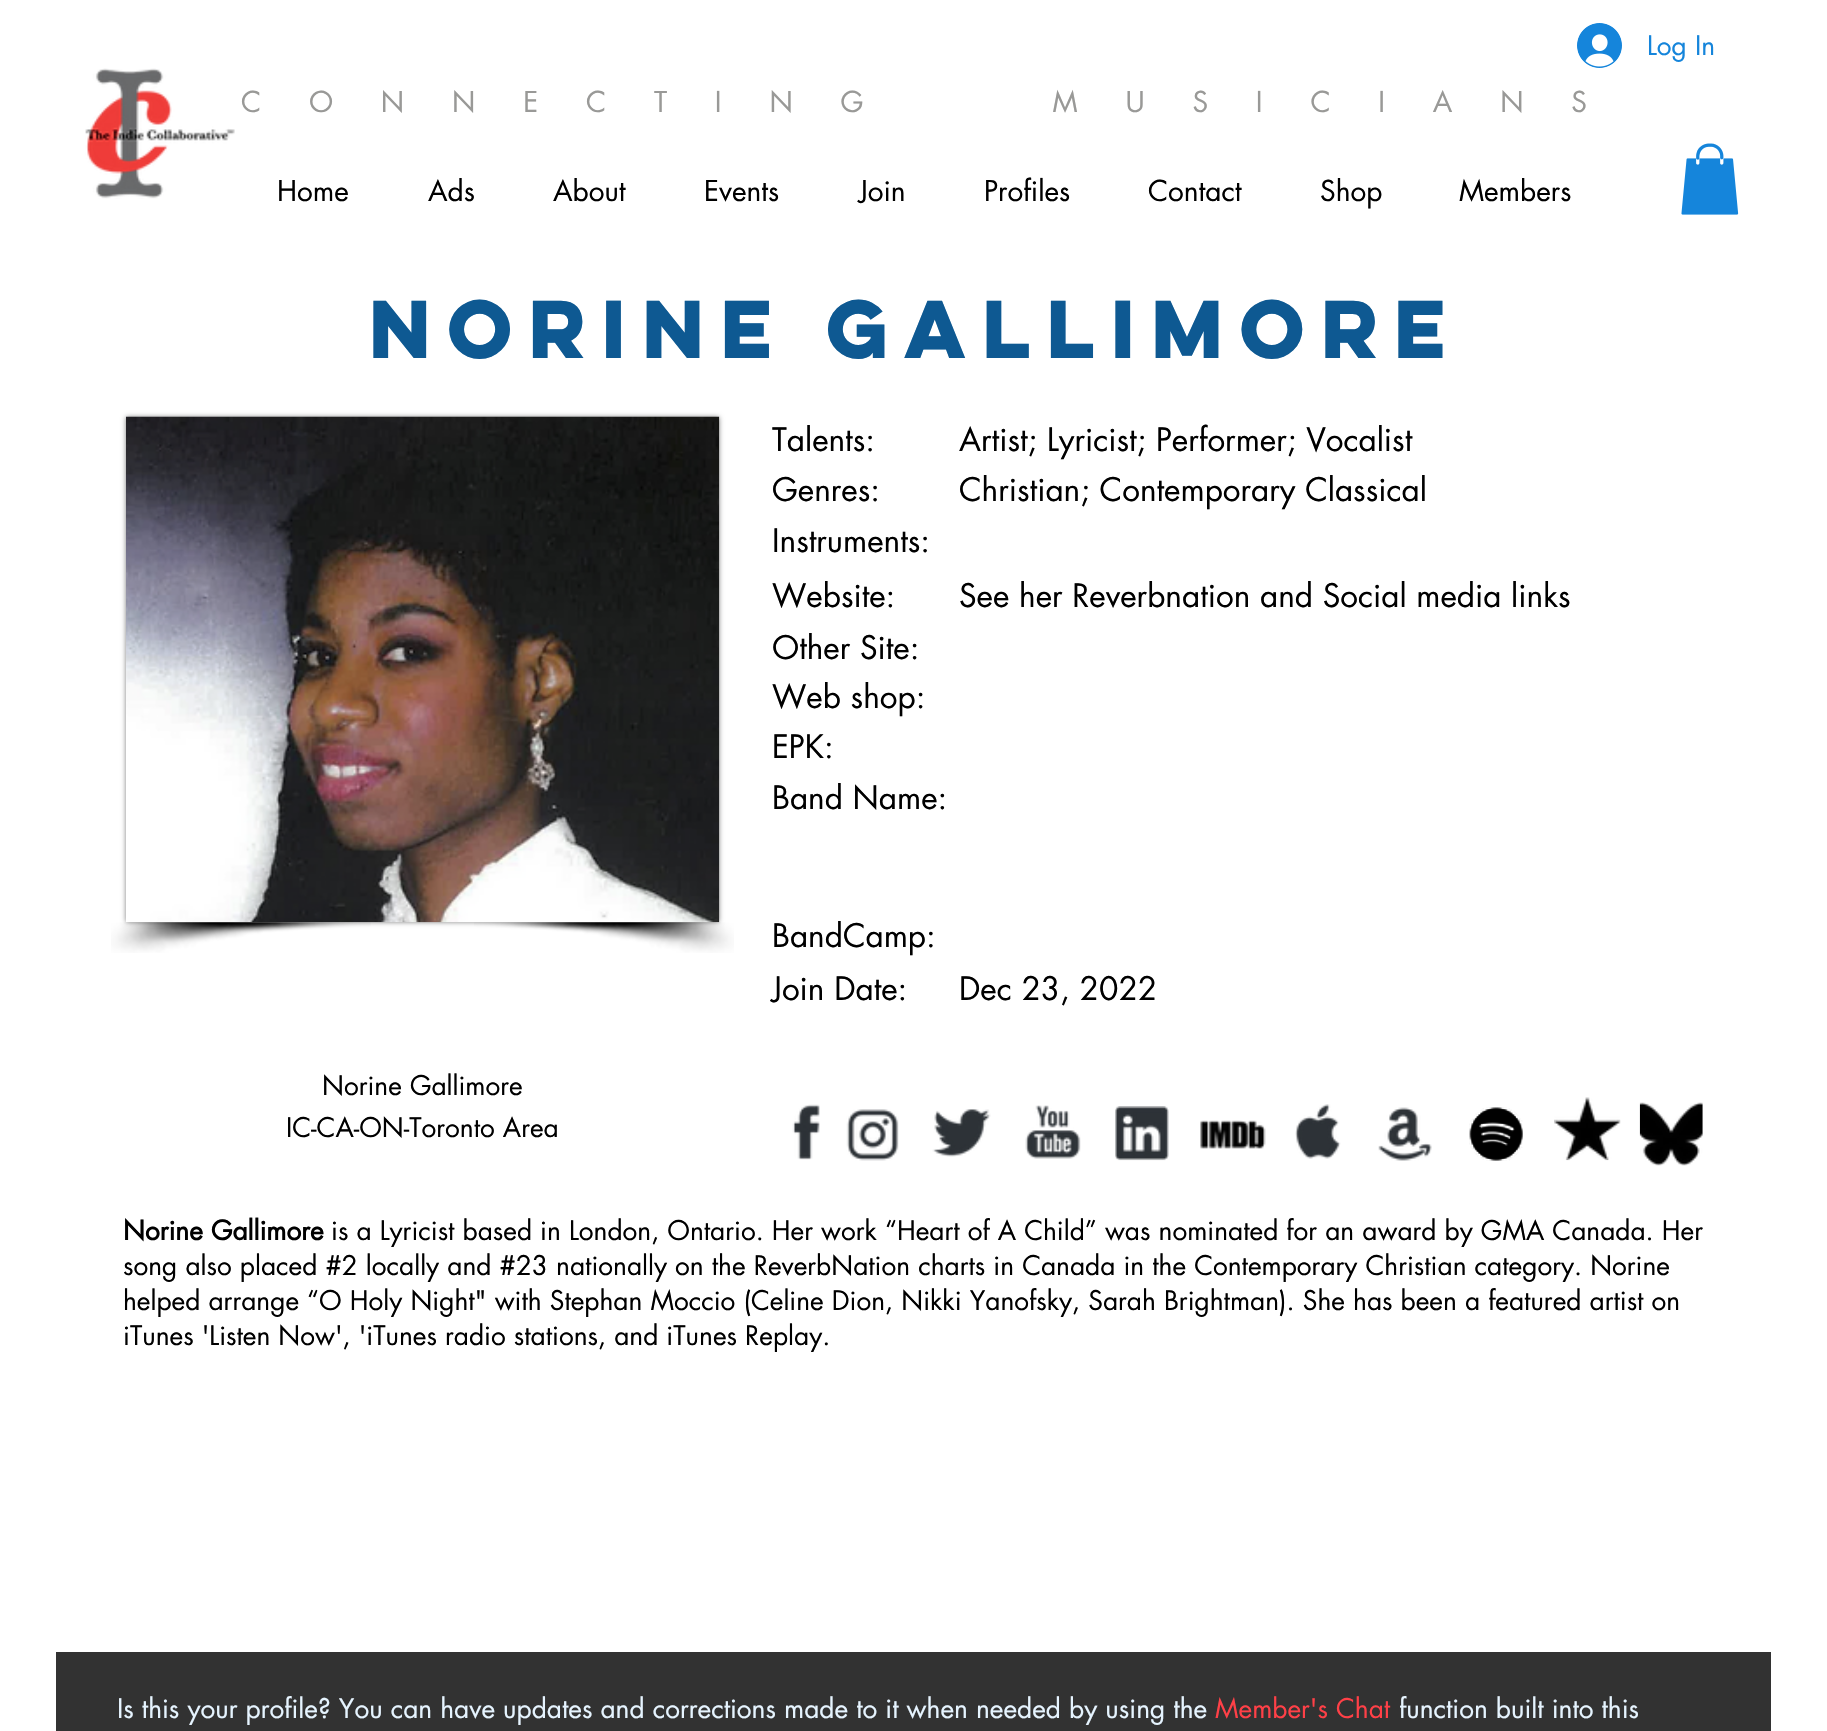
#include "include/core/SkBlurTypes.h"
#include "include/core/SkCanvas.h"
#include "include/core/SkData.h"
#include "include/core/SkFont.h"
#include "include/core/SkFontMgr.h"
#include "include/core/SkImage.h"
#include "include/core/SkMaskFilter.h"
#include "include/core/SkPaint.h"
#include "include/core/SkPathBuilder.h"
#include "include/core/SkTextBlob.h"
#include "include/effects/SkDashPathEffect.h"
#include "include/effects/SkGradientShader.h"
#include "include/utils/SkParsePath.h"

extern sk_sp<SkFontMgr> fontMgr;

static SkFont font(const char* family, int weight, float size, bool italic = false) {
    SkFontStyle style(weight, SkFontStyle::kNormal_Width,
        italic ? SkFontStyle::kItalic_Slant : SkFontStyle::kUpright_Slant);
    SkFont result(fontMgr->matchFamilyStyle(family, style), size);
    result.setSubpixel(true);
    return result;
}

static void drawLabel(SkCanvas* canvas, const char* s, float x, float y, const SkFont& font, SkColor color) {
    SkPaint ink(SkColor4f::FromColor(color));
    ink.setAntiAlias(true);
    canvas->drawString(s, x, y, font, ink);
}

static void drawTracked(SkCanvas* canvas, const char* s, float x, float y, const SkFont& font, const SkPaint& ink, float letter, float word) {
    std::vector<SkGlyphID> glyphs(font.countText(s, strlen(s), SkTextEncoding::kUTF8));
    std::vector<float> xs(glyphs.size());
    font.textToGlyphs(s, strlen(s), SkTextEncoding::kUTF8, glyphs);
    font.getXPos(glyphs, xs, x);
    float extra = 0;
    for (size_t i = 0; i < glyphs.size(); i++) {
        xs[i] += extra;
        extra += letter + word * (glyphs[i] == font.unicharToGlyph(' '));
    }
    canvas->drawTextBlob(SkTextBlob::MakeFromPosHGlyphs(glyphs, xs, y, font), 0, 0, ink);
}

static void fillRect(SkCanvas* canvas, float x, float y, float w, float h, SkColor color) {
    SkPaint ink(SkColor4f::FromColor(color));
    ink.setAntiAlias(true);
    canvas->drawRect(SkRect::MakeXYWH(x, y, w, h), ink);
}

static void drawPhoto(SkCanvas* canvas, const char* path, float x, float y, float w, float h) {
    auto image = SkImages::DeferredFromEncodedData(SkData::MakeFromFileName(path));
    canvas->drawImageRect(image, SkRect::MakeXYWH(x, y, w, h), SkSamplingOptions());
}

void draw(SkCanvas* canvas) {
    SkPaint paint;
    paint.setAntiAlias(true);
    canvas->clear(0xFFFFFFFF);
    drawPhoto(canvas, "assets/img1.png", 1577, 23, 45, 45);
    SkFont font1 = font("futura", 400, 26.25f);
    drawLabel(canvas, "Log In", 1647, 55, font1, 0xFF1585DB);
    drawPhoto(canvas, "assets/img2.png", 85, 68, 150, 131);
    SkFont font2 = font("futura", 400, 28);
    paint.setColor(0xFF999997);
    drawTracked(canvas, "C O N N E C T I N G      M U S I C I A N S", 241, 112, font2, paint, 19.6f, 0);
    drawLabel(canvas, "Home", 277, 201, font2, 0xFF000000);
    drawLabel(canvas, "Ads", 428, 201, font2, 0xFF000000);
    drawLabel(canvas, "About", 553, 201, font2, 0xFF000000);
    drawLabel(canvas, "Events", 704, 201, font2, 0xFF000000);
    drawLabel(canvas, "Join", 859, 201, font2, 0xFF000000);
    drawLabel(canvas, "Profiles", 984, 201, font2, 0xFF000000);
    drawLabel(canvas, "Contact", 1148, 201, font2, 0xFF000000);
    drawLabel(canvas, "Shop", 1320, 201, font2, 0xFF000000);
    drawLabel(canvas, "Members", 1459, 201, font2, 0xFF000000);
    drawPhoto(canvas, "assets/img3.png", 1681, 143, 58, 72);
    SkFont font3 = font("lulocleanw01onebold", 700, 73.5f);
    drawLabel(canvas, "Norine Gallimore", 369, 358, font3, 0xFF0E5992);
    SkFont font4 = font("futura", 400, 31.5f);
    drawLabel(canvas, "Talents:", 772, 451, font4, 0xFF000000);
    drawLabel(canvas, "Artist; Lyricist; Performer; Vocalist", 959, 451, font4, 0xFF000000);
    drawLabel(canvas, "Genres:", 772, 501, font4, 0xFF000000);
    drawLabel(canvas, "Christian; Contemporary Classical", 959, 501, font4, 0xFF000000);
    drawLabel(canvas, "Instruments:", 772, 552, font4, 0xFF000000);
    drawLabel(canvas, "Website:", 772, 607, font4, 0xFF000000);
    drawLabel(canvas, "See her Reverbnation and Social media links", 959, 607, font4, 0xFF000000);
    drawLabel(canvas, "Other Site:", 772, 659, font4, 0xFF000000);
    drawLabel(canvas, "Web shop:", 772, 708, font4, 0xFF000000);
    drawLabel(canvas, "EPK:", 772, 758, font4, 0xFF000000);
    drawLabel(canvas, "Band Name:", 772, 809, font4, 0xFF000000);
    drawLabel(canvas, "BandCamp:", 772, 947, font4, 0xFF000000);
    drawLabel(canvas, "Join Date:", 772, 1000, font4, 0xFF000000);
    drawLabel(canvas, "Dec 23, 2022", 959, 1000, font4, 0xFF000000);
    drawLabel(canvas, "Norine Gallimore", 322, 1095, font1, 0xFF000000);
    drawPhoto(canvas, "assets/img4.png", 792, 1104, 28, 56);
    drawPhoto(canvas, "assets/img5.png", 1025, 1105, 56, 54);
    drawPhoto(canvas, "assets/img6.png", 1115, 1106, 54, 55);
    drawPhoto(canvas, "assets/img7.png", 1295, 1104, 46, 55);
    drawPhoto(canvas, "assets/img8.png", 1378, 1107, 54, 54);
    drawPhoto(canvas, "assets/img9.png", 1469, 1107, 54, 54);
    drawPhoto(canvas, "assets/img10.png", 1554, 1097, 67, 64);
    drawPhoto(canvas, "assets/img11.png", 1639, 1102, 64, 64);
    drawPhoto(canvas, "assets/img12.png", 1469, 1107, 54, 54);
    drawPhoto(canvas, "assets/img13.png", 1469, 1107, 54, 54);
    drawLabel(canvas, "IC-CA-ON-Toronto Area", 286, 1137, font1, 0xFF000000);
    drawPhoto(canvas, "assets/img14.png", 846, 1109, 53, 52);
    drawPhoto(canvas, "assets/img15.png", 932, 1109, 59, 48);
    drawPhoto(canvas, "assets/img16.png", 1200, 1120, 66, 29);
    drawPhoto(canvas, "assets/img17.png", 1469, 1107, 54, 54);
    SkFont font5 = font("futura", 700, 26.25f);
    drawLabel(canvas, "Norine Gallimore", 123, 1240, font5, 0xFF000000);
    drawLabel(canvas, "is a Lyricist based in London, Ontario. Her work “Heart of A Child” was nominated for an award by GMA Canada. Her", 331, 1240, font1, 0xFF000000);
    drawLabel(canvas, "song also placed #2 locally and #23 nationally on the ReverbNation charts in Canada in the Contemporary Christian category. Norine", 123, 1275, font1, 0xFF000000);
    drawLabel(canvas, "helped arrange “O Holy Night\" with Stephan Moccio (Celine Dion, Nikki Yanofsky, Sarah Brightman). She has been a featured artist on", 123, 1310, font1, 0xFF000000);
    drawLabel(canvas, "iTunes 'Listen Now', 'iTunes radio stations, and iTunes Replay.", 123, 1345, font1, 0xFF000000);
    paint.setColor(0x80000000);
    paint.setMaskFilter(SkMaskFilter::MakeBlur(kNormal_SkBlurStyle, 2.5f));
    canvas->drawRect(SkRect::MakeXYWH(126, 417, 593, 505), paint);
    paint.setMaskFilter(nullptr);
    drawPhoto(canvas, "assets/img18.png", 126, 416, 594, 507);
    drawPhoto(canvas, "assets/img19.png", 111, 922, 260, 31);
    drawPhoto(canvas, "assets/img20.png", 474, 922, 260, 31);
    fillRect(canvas, 56, 1652, 1715, 79, 0xFF323232);
    drawLabel(canvas, "Is this your profile? You can have updates and corrections made to it when needed by using the", 117, 1718, font1, 0xFFE6F4FF);
    drawLabel(canvas, "Member's Chat", 1215, 1718, font1, 0xFFFF4047);
    drawLabel(canvas, "function built into this", 1399, 1718, font1, 0xFFE6F4FF);
}
